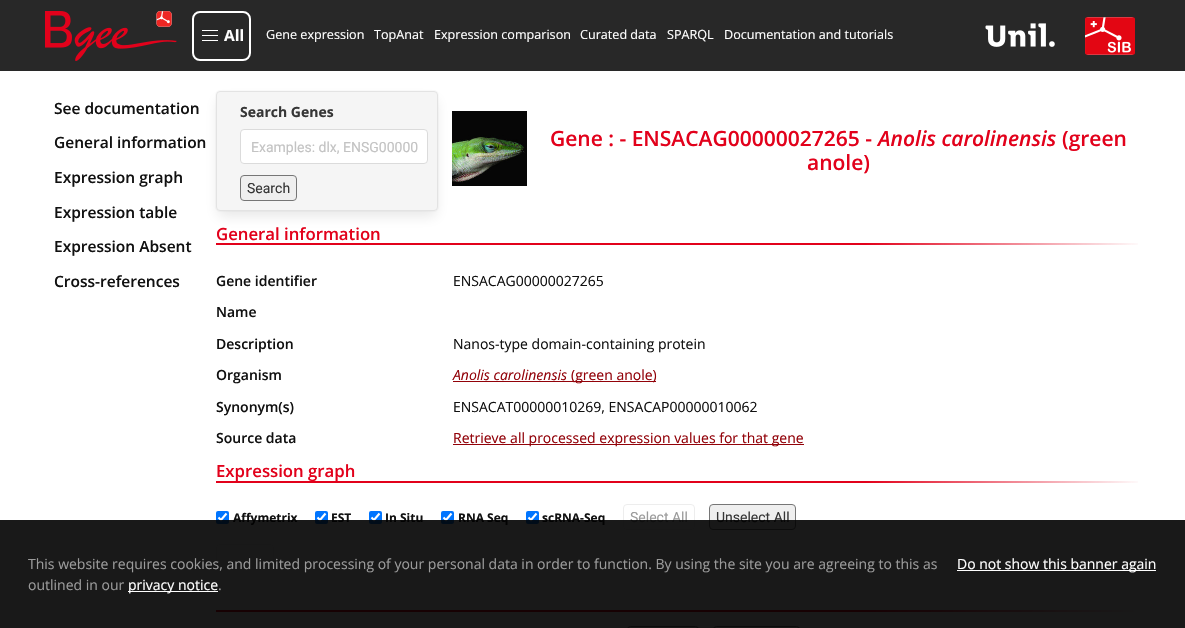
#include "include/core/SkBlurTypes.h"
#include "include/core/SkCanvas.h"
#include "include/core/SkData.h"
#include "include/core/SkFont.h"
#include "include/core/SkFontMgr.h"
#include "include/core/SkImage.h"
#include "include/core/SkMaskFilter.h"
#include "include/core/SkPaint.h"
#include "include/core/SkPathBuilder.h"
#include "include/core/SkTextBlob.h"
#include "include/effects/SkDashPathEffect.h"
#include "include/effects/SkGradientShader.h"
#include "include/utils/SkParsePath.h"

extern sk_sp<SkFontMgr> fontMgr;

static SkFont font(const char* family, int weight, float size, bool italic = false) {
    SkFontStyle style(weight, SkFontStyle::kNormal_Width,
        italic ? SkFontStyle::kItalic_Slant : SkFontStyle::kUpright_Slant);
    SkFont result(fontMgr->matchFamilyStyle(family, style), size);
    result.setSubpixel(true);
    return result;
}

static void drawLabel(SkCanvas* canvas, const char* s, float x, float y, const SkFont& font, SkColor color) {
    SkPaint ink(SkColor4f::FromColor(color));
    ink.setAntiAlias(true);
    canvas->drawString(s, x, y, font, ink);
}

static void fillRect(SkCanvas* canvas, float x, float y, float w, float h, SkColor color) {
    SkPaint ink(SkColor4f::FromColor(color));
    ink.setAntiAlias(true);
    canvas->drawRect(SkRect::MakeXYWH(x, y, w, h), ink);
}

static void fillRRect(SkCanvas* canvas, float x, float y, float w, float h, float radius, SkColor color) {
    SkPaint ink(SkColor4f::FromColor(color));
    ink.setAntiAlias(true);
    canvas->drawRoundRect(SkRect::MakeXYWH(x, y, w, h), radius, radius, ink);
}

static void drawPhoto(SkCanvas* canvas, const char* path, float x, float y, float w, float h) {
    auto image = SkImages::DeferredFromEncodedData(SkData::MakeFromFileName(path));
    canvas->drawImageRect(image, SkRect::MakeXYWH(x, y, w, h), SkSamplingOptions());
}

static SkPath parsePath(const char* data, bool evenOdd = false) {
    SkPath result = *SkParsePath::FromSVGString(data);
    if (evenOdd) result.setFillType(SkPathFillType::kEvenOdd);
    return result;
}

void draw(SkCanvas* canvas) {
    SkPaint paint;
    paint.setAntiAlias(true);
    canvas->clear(0xFFFFFFFF);
    fillRect(canvas, 0, 0, 1185, 71, 0xFF282828);
    drawPhoto(canvas, "assets/img1.png", 45, 11, 132, 50);
    paint.setStroke(true);
    paint.setStrokeWidth(2);
    paint.setColor(0xFFFFFFFF);
    canvas->drawRoundRect(SkRect::MakeXYWH(193, 12, 57, 48), 7, 7, paint);
    fillRect(canvas, 202, 30, 16, 1, 0xFFFFFFFF);
    fillRect(canvas, 202, 35, 16, 1, 0xFFFFFFFF);
    fillRect(canvas, 202, 40, 16, 1, 0xFFFFFFFF);
    SkFont font1 = font("Open Sans", 700, 15.5f);
    drawLabel(canvas, "All", 224, 41, font1, 0xFFFFFFFF);
    SkFont font2 = font("Open Sans", 400, 12.6f);
    drawLabel(canvas, "Gene expression", 266, 39, font2, 0xFFFFFFFF);
    drawLabel(canvas, "TopAnat", 374, 39, font2, 0xFFFFFFFF);
    drawLabel(canvas, "Expression comparison", 434, 39, font2, 0xFFFFFFFF);
    drawLabel(canvas, "Curated data", 580, 39, font2, 0xFFFFFFFF);
    drawLabel(canvas, "SPARQL", 667, 39, font2, 0xFFFFFFFF);
    drawLabel(canvas, "Documentation and tutorials", 724, 39, font2, 0xFFFFFFFF);
    drawPhoto(canvas, "assets/img2.png", 985, 23, 70, 24);
    drawPhoto(canvas, "assets/img3.png", 1085, 17, 50, 38);
    SkFont font3 = font("Open Sans", 600, 15.5f);
    drawLabel(canvas, "See documentation", 54, 114, font3, 0xFF111111);
    drawLabel(canvas, "General information", 54, 148, font3, 0xFF111111);
    drawLabel(canvas, "Expression graph", 54, 183, font3, 0xFF111111);
    drawLabel(canvas, "Expression table", 54, 218, font3, 0xFF111111);
    drawLabel(canvas, "Expression Absent", 54, 252, font3, 0xFF111111);
    drawLabel(canvas, "Cross-references", 54, 287, font3, 0xFF111111);
    paint.setStrokeWidth(1);
    paint.setColor(0xFFFAFAFA);
    canvas->drawRoundRect(SkRect::MakeXYWH(215.5f, 90.5f, 223, 121), 4.5f, 4.5f, paint);
    paint.setStroke(false);
    paint.setColor(0x1A0A0A0A);
    paint.setMaskFilter(SkMaskFilter::MakeBlur(kNormal_SkBlurStyle, 7));
    canvas->drawRoundRect(SkRect::MakeXYWH(218, 100, 218, 116), 2, 2, paint);
    paint.setMaskFilter(nullptr);
    paint.setColor(0xFFF5F5F5);
    canvas->drawRoundRect(SkRect::MakeXYWH(216.5f, 91.5f, 221, 119), 3.5f, 3.5f, paint);
    paint.setStroke(true);
    paint.setColor(0xFFE3E3E3);
    canvas->drawRoundRect(SkRect::MakeXYWH(216.5f, 91.5f, 221, 119), 3.5f, 3.5f, paint);
    SkFont font4 = font("Open Sans", 700, 14);
    drawLabel(canvas, "Search Genes", 240, 117, font4, 0xFF363636);
    paint.setStroke(false);
    paint.setColor(0xFFFFFFFF);
    canvas->drawRoundRect(SkRect::MakeXYWH(240.5f, 129.5f, 187, 34), 3.5f, 3.5f, paint);
    paint.setStroke(true);
    paint.setColor(0xFFDBDBDB);
    canvas->drawRoundRect(SkRect::MakeXYWH(240.5f, 129.5f, 187, 34), 3.5f, 3.5f, paint);
    SkFont font5 = font("Roboto", 400, 14);
    drawLabel(canvas, "Examples: dlx, ENSG00000", 251, 152, font5, 0xFFC3C3C3);
    paint.setStroke(false);
    paint.setColor(0xFFEFEFEF);
    canvas->drawRoundRect(SkRect::MakeXYWH(240.5f, 175.5f, 56, 25), 3.5f, 3.5f, paint);
    paint.setStroke(true);
    paint.setColor(0xFF767676);
    canvas->drawRoundRect(SkRect::MakeXYWH(240.5f, 175.5f, 56, 25), 3.5f, 3.5f, paint);
    drawLabel(canvas, "Search", 247, 193, font5, 0xFF363636);
    drawPhoto(canvas, "assets/img4.png", 452, 111, 75, 75);
    SkFont font6 = font("Open Sans", 600, 21);
    drawLabel(canvas, "Gene : - ENSACAG00000027265 -", 550, 146, font6, 0xFFE2011B);
    SkFont font7 = font("Open Sans", 600, 21, true);
    drawLabel(canvas, "Anolis carolinensis", 878, 146, font7, 0xFFE2011B);
    drawLabel(canvas, "(green", 1062, 146, font6, 0xFFE2011B);
    drawLabel(canvas, "anole)", 807, 170, font6, 0xFFE2011B);
    drawPhoto(canvas, "assets/img5.png", 216, 243, 922, 2);
    SkFont font8 = font("Open Sans", 600, 16.75f);
    drawLabel(canvas, "General information", 216, 240, font8, 0xFFE2011B);
    SkFont font9 = font("Open Sans", 600, 14);
    drawLabel(canvas, "Gene identifier", 216, 286, font9, 0xFF111111);
    SkFont font10 = font("Open Sans", 400, 14);
    drawLabel(canvas, "ENSACAG00000027265", 453, 286, font10, 0xFF111111);
    drawLabel(canvas, "Name", 216, 317, font9, 0xFF111111);
    drawLabel(canvas, "Description", 216, 349, font9, 0xFF111111);
    drawLabel(canvas, "Nanos-type domain-containing protein", 453, 349, font10, 0xFF111111);
    drawLabel(canvas, "Organism", 216, 380, font9, 0xFF111111);
    SkFont font11 = font("Open Sans", 400, 14, true);
    drawLabel(canvas, "Anolis carolinensis", 453, 380, font11, 0xFF920209);
    fillRect(canvas, 453, 381, 203, 1, 0xFF920209);
    drawLabel(canvas, "(green anole)", 571, 380, font10, 0xFF920209);
    drawLabel(canvas, "Synonym(s)", 216, 412, font9, 0xFF111111);
    drawLabel(canvas, "ENSACAT00000010269, ENSACAP00000010062", 453, 412, font10, 0xFF111111);
    drawLabel(canvas, "Source data", 216, 443, font9, 0xFF111111);
    fillRect(canvas, 453, 444, 351, 1, 0xFF920209);
    drawLabel(canvas, "Retrieve all processed expression values for that gene", 453, 443, font10, 0xFF920209);
    drawPhoto(canvas, "assets/img5.png", 216, 481, 922, 2);
    drawLabel(canvas, "Expression graph", 216, 477, font8, 0xFFE2011B);
    fillRRect(canvas, 216, 511, 13, 13, 2, 0xFF0075FF);
    paint.setStrokeWidth(2.1f);
    paint.setColor(0xFFFFFFFF);
    canvas->drawPath(parsePath("M218.5 517.5L221 520L226.5 513.5"), paint);
    SkFont font12 = font("Open Sans", 700, 12);
    drawLabel(canvas, "Affymetrix", 233, 522, font12, 0xFF111111);
    fillRRect(canvas, 315, 511, 13, 13, 2, 0xFF0075FF);
    canvas->drawPath(parsePath("M317.5 517.5L320 520L325.5 513.5"), paint);
    drawLabel(canvas, "EST", 331, 522, font12, 0xFF111111);
    fillRRect(canvas, 369, 511, 13, 13, 2, 0xFF0075FF);
    canvas->drawPath(parsePath("M371.5 517.5L374 520L379.5 513.5"), paint);
    drawLabel(canvas, "In Situ", 385, 522, font12, 0xFF111111);
    fillRRect(canvas, 441, 511, 13, 13, 2, 0xFF0075FF);
    canvas->drawPath(parsePath("M443.5 517.5L446 520L451.5 513.5"), paint);
    drawLabel(canvas, "RNA Seq", 458, 522, font12, 0xFF111111);
    fillRRect(canvas, 526, 511, 13, 13, 2, 0xFF0075FF);
    canvas->drawPath(parsePath("M528.5 517.5L531 520L536.5 513.5"), paint);
    drawLabel(canvas, "scRNA-Seq", 542, 522, font12, 0xFF111111);
    paint.setStrokeWidth(1);
    paint.setColor(0xFFEDEDED);
    canvas->drawRoundRect(SkRect::MakeXYWH(623.5f, 504.5f, 71, 25), 3.5f, 3.5f, paint);
    drawLabel(canvas, "Select All", 630, 522, font5, 0xFF9B9B9B);
    paint.setStroke(false);
    paint.setColor(0xFFEFEFEF);
    canvas->drawRoundRect(SkRect::MakeXYWH(709.5f, 504.5f, 86, 25), 3.5f, 3.5f, paint);
    paint.setStroke(true);
    paint.setColor(0xFF767676);
    canvas->drawRoundRect(SkRect::MakeXYWH(709.5f, 504.5f, 86, 25), 3.5f, 3.5f, paint);
    drawLabel(canvas, "Unselect All", 716, 522, font5, 0xFF363636);
    paint.setColor(0xFFEDEDED);
    canvas->drawRoundRect(SkRect::MakeXYWH(216.5f, 544.5f, 57, 25), 3.5f, 3.5f, paint);
    drawPhoto(canvas, "assets/img6.png", 216, 610, 922, 2);
    paint.setStroke(false);
    paint.setColor(0xFFEFEFEF);
    canvas->drawRoundRect(SkRect::MakeXYWH(627.5f, 626.5f, 71, 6), 3.5f, 3.5f, paint);
    paint.setStroke(true);
    paint.setColor(0xFF767676);
    canvas->drawRoundRect(SkRect::MakeXYWH(627.5f, 626.5f, 71, 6), 3.5f, 3.5f, paint);
    paint.setStroke(false);
    paint.setColor(0xFFEFEFEF);
    canvas->drawRoundRect(SkRect::MakeXYWH(713.5f, 626.5f, 86, 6), 3.5f, 3.5f, paint);
    paint.setStroke(true);
    paint.setColor(0xFF767676);
    canvas->drawRoundRect(SkRect::MakeXYWH(713.5f, 626.5f, 86, 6), 3.5f, 3.5f, paint);
    fillRect(canvas, 0, 520, 1185, 108, 0xE6000000);
    drawLabel(canvas, "This website requires cookies, and limited processing of your personal data in order to function. By using the site you are agreeing to this as", 28, 569, font10, 0xFF9B9B9B);
    drawLabel(canvas, "outlined in our", 28, 590, font10, 0xFF9B9B9B);
    fillRect(canvas, 128, 591, 90, 1, 0xFFFFFFFF);
    drawLabel(canvas, "privacy notice", 128, 590, font10, 0xFFFFFFFF);
    drawLabel(canvas, ".", 218, 590, font10, 0xFF9B9B9B);
    fillRect(canvas, 957, 570, 199, 1, 0xFFFFFFFF);
    drawLabel(canvas, "Do not show this banner again", 957, 569, font10, 0xFFFFFFFF);
}
